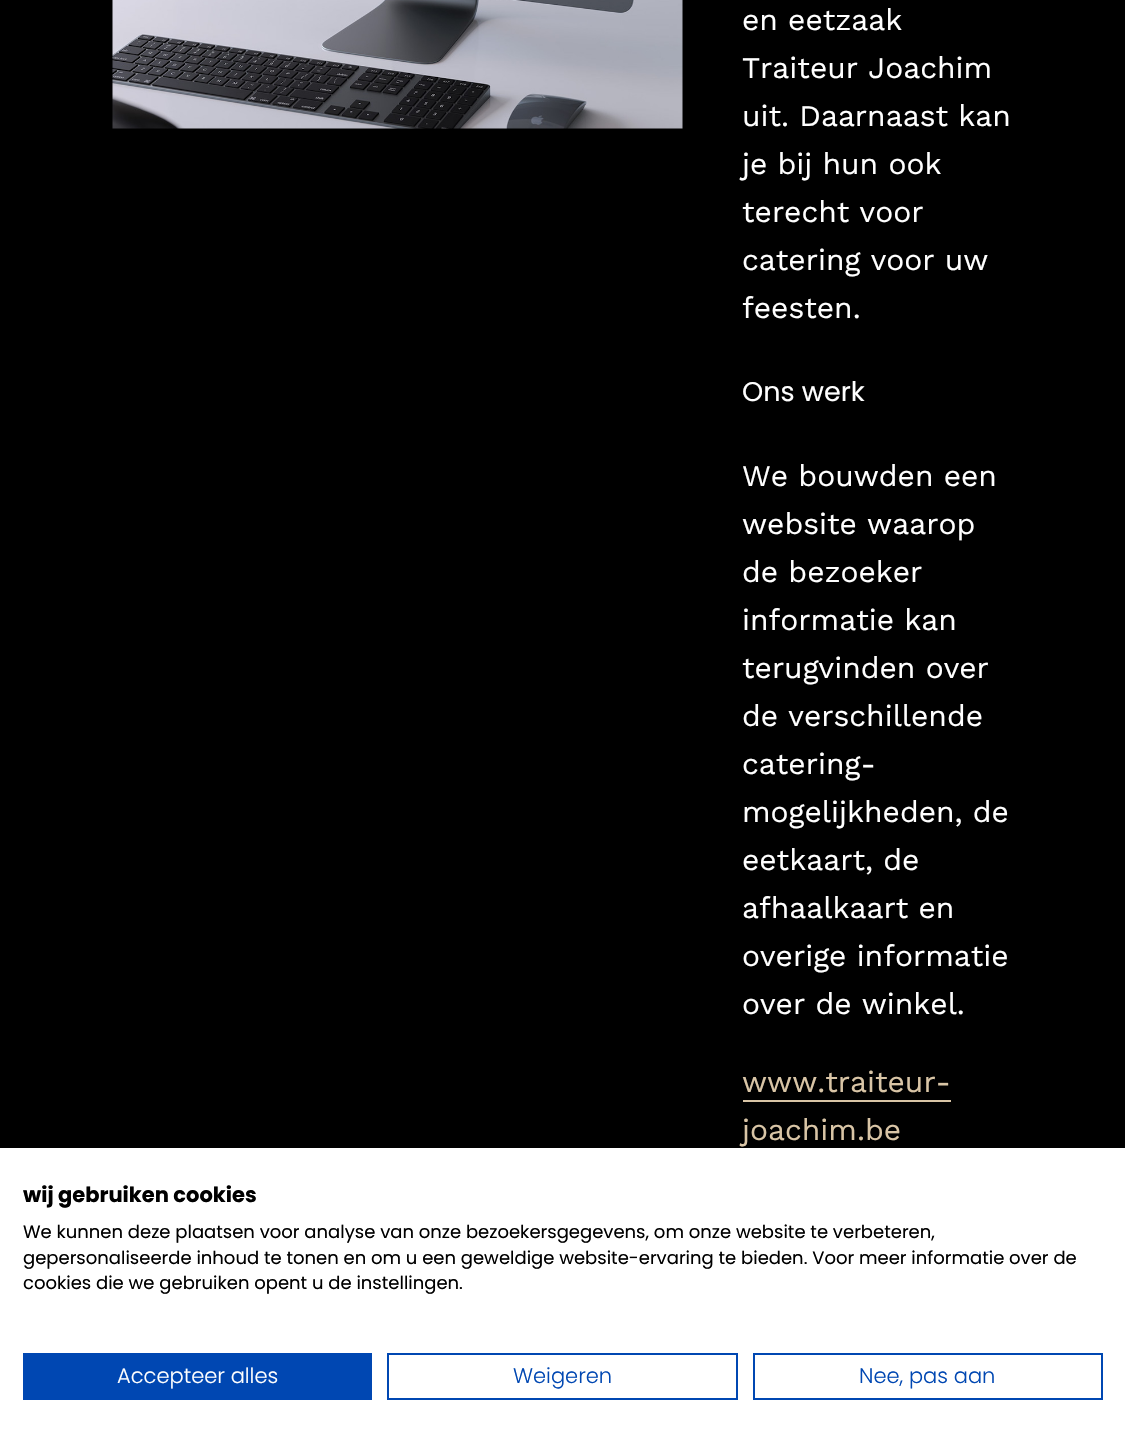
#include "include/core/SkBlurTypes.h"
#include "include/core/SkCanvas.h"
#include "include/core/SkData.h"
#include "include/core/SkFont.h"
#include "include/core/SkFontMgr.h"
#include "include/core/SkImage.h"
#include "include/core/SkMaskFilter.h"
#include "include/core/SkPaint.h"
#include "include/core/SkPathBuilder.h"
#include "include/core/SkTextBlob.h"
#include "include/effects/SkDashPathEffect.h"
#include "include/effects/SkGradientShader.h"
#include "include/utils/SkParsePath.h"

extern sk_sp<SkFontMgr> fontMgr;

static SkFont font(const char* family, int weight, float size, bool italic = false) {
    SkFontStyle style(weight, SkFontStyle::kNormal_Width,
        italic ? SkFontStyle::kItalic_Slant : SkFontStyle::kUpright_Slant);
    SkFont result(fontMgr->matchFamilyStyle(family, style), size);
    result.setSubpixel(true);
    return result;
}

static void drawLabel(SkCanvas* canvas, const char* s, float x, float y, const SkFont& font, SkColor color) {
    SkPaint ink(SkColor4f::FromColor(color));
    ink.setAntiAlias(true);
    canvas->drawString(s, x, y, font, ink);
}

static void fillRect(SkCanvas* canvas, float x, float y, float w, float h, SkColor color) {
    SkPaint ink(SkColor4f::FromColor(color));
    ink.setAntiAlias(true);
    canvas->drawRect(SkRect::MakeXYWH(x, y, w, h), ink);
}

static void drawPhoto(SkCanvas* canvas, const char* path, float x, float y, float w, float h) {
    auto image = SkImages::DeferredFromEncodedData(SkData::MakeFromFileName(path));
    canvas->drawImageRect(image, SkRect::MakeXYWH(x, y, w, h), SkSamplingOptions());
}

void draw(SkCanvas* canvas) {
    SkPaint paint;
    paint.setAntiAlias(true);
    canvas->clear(0xFF000000);
    drawPhoto(canvas, "assets/img1.png", 112, 0, 571, 129);
    SkFont font1 = font("Work Sans", 400, 30);
    drawLabel(canvas, "en eetzaak", 742, 30, font1, 0xFFFFFFFF);
    drawLabel(canvas, "Traiteur Joachim", 742, 78, font1, 0xFFFFFFFF);
    drawLabel(canvas, "uit. Daarnaast kan", 742, 126, font1, 0xFFFFFFFF);
    drawLabel(canvas, "je bij hun ook", 742, 174, font1, 0xFFFFFFFF);
    drawLabel(canvas, "terecht voor", 742, 222, font1, 0xFFFFFFFF);
    drawLabel(canvas, "catering voor uw", 742, 270, font1, 0xFFFFFFFF);
    drawLabel(canvas, "feesten.", 742, 318, font1, 0xFFFFFFFF);
    SkFont font2 = font("Poppins", 400, 27);
    drawLabel(canvas, "Ons werk", 742, 401, font2, 0xFFFFFFFF);
    drawLabel(canvas, "We bouwden een", 742, 486, font1, 0xFFFFFFFF);
    drawLabel(canvas, "website waarop", 742, 534, font1, 0xFFFFFFFF);
    drawLabel(canvas, "de bezoeker", 742, 582, font1, 0xFFFFFFFF);
    drawLabel(canvas, "informatie kan", 742, 630, font1, 0xFFFFFFFF);
    drawLabel(canvas, "terugvinden over", 742, 678, font1, 0xFFFFFFFF);
    drawLabel(canvas, "de verschillende", 742, 726, font1, 0xFFFFFFFF);
    drawLabel(canvas, "catering-", 742, 774, font1, 0xFFFFFFFF);
    drawLabel(canvas, "mogelijkheden, de", 742, 822, font1, 0xFFFFFFFF);
    drawLabel(canvas, "eetkaart, de", 742, 870, font1, 0xFFFFFFFF);
    drawLabel(canvas, "afhaalkaart en", 742, 918, font1, 0xFFFFFFFF);
    drawLabel(canvas, "overige informatie", 742, 966, font1, 0xFFFFFFFF);
    drawLabel(canvas, "over de winkel.", 742, 1014, font1, 0xFFFFFFFF);
    drawLabel(canvas, "www.traiteur-", 742, 1092, font1, 0xFFD9C5A6);
    fillRect(canvas, 743, 1100, 208, 2, 0xFFD9C5A6);
    drawLabel(canvas, "joachim.be", 742, 1140, font1, 0xFFD9C5A6);
    fillRect(canvas, 0, 1148, 1125, 291, 0xFFFFFFFF);
    SkFont font3 = font("Poppins", 700, 21);
    drawLabel(canvas, "wij gebruiken cookies", 23, 1202, font3, 0xFF000000);
    SkFont font4 = font("Poppins", 400, 18);
    drawLabel(canvas, "We kunnen deze plaatsen voor analyse van onze bezoekersgegevens, om onze website te verbeteren,", 23, 1238, font4, 0xFF000000);
    drawLabel(canvas, "gepersonaliseerde inhoud te tonen en om u een geweldige website-ervaring te bieden. Voor meer informatie over de", 23, 1264, font4, 0xFF000000);
    drawLabel(canvas, "cookies die we gebruiken opent u de instellingen.", 23, 1289, font4, 0xFF000000);
    fillRect(canvas, 23, 1353, 349, 47, 0xFF0047B2);
    SkFont font5 = font("Poppins", 300, 21);
    drawLabel(canvas, "Accepteer alles", 117, 1383, font5, 0xFFFFFFFF);
    paint.setStroke(true);
    paint.setStrokeWidth(2);
    paint.setColor(0xFF0047B2);
    canvas->drawRect(SkRect::MakeXYWH(388, 1354, 349, 45), paint);
    drawLabel(canvas, "Weigeren", 513, 1383, font5, 0xFF0047B2);
    canvas->drawRect(SkRect::MakeXYWH(754, 1354, 348, 45), paint);
    drawLabel(canvas, "Nee, pas aan", 859, 1383, font5, 0xFF0047B2);
}
